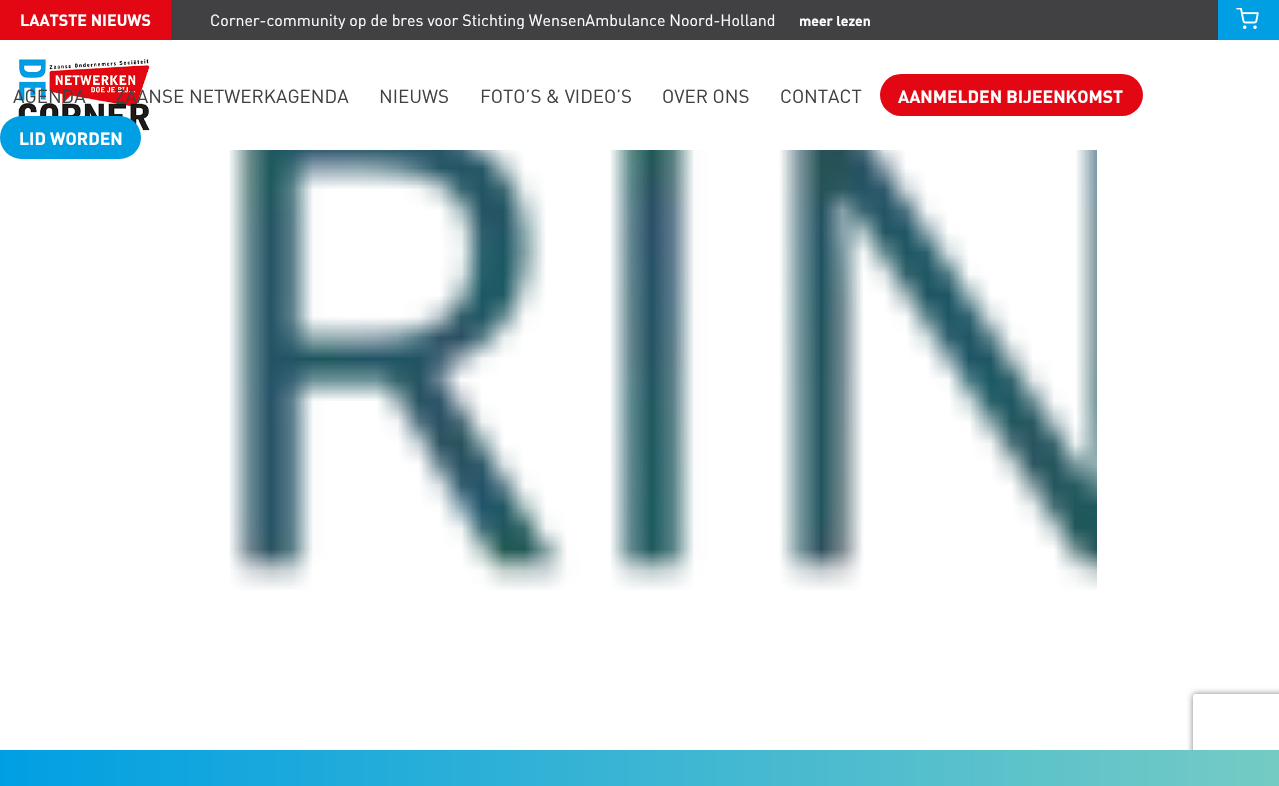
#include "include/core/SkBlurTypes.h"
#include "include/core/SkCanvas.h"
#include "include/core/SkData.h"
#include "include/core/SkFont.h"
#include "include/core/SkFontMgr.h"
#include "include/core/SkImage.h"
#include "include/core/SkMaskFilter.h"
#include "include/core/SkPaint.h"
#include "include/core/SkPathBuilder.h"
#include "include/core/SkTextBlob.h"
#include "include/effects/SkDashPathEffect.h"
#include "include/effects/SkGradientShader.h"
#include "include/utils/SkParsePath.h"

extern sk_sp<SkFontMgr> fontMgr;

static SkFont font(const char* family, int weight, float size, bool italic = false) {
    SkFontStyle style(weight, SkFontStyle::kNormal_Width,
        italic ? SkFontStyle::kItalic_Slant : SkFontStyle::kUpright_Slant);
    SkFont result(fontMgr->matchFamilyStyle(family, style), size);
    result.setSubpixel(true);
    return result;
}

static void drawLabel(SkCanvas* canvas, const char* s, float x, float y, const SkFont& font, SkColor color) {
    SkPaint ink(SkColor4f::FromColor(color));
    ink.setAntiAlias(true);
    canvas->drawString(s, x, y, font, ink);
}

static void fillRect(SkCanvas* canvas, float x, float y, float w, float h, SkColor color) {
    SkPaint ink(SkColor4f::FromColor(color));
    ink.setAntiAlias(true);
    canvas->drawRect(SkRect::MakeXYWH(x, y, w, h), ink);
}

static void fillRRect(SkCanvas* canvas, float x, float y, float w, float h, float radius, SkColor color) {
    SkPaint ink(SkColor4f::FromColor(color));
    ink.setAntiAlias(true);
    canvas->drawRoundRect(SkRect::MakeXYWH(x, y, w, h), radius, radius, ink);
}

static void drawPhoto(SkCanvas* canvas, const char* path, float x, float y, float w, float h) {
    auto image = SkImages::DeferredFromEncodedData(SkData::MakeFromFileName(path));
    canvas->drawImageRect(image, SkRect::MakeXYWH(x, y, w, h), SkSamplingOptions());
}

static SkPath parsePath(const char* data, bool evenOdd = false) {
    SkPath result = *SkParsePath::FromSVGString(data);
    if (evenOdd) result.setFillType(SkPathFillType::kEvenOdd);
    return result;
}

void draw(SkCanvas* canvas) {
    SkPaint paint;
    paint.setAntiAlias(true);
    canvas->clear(0xFFFFFFFF);
    fillRect(canvas, 171, 0, 1047, 40, 0xFF414042);
    fillRect(canvas, 0, 0, 171, 40, 0xFFE30613);
    SkFont font1 = font("DIN", 700, 16);
    drawLabel(canvas, "LAATSTE NIEUWS", 20, 26, font1, 0xFFFFFFFF);
    canvas->save();
    canvas->clipRect(SkRect::MakeXYWH(191, 10, 680, 19));
    SkFont font2 = font("DIN", 400, 16);
    drawLabel(canvas, "Corner-community op de bres voor Stichting WensenAmbulance Noord-Holland", 210, 26, font2, 0xFFFFFFFF);
    canvas->restore();
    SkFont font3 = font("DIN", 700, 14);
    drawLabel(canvas, "meer lezen", 799, 26, font3, 0xFFFFFFFF);
    fillRect(canvas, 1218, 0, 61, 40, 0xFF009FE3);
    drawPhoto(canvas, "assets/img1.png", 1236, 8, 23, 21);
    drawPhoto(canvas, "assets/img2.png", 18, 59, 132, 72);
    SkFont font4 = font("DIN", 400, 18.75f);
    drawLabel(canvas, "AGENDA", 13, 103, font4, 0xFF414042);
    drawLabel(canvas, "ZAANSE NETWERKAGENDA", 115, 103, font4, 0xFF414042);
    drawLabel(canvas, "NIEUWS", 379, 103, font4, 0xFF414042);
    drawLabel(canvas, "FOTO’S & VIDEO’S", 480, 103, font4, 0xFF414042);
    drawLabel(canvas, "OVER ONS", 662, 103, font4, 0xFF414042);
    drawLabel(canvas, "CONTACT", 780, 103, font4, 0xFF414042);
    fillRRect(canvas, 880, 74, 263, 42, 21, 0xFFE30613);
    SkFont font5 = font("DIN", 700, 17.5f);
    drawLabel(canvas, "AANMELDEN BIJEENKOMST", 898, 103, font5, 0xFFFFFFFF);
    fillRRect(canvas, 0, 116, 141, 43, 21.5f, 0xFF009FE3);
    drawLabel(canvas, "LID WORDEN", 19, 145, font5, 0xFFFFFFFF);
    drawPhoto(canvas, "assets/img3.png", 229, 150, 868, 440);
    canvas->save();
    canvas->clipPath(parsePath("M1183 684H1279V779H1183ZM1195.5 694H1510.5C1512 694 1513 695 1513 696.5V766.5C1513 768 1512 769 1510.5 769H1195.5C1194 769 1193 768 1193 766.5V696.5C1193 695 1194 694 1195.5 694Z", true), true);
    paint.setColor(0xFF808080);
    paint.setMaskFilter(SkMaskFilter::MakeBlur(kNormal_SkBlurStyle, 3));
    canvas->drawRoundRect(SkRect::MakeXYWH(1193, 694, 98, 75), 2.5f, 2.5f, paint);
    paint.setMaskFilter(nullptr);
    canvas->restore();
    {
        const SkColor colors[] = {0xFF009FE3, 0xFF75CBC4};
        const float stops[] = {0, 1};
        const SkPoint ends[] = {{0, 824}, {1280, 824}};
        paint.setShader(SkGradientShader::MakeLinear(ends, colors, stops, 2, SkTileMode::kClamp));
        paint.setAlpha(255);
    }
    canvas->drawRect(SkRect::MakeXYWH(0, 750, 1279, 36), paint);
}
